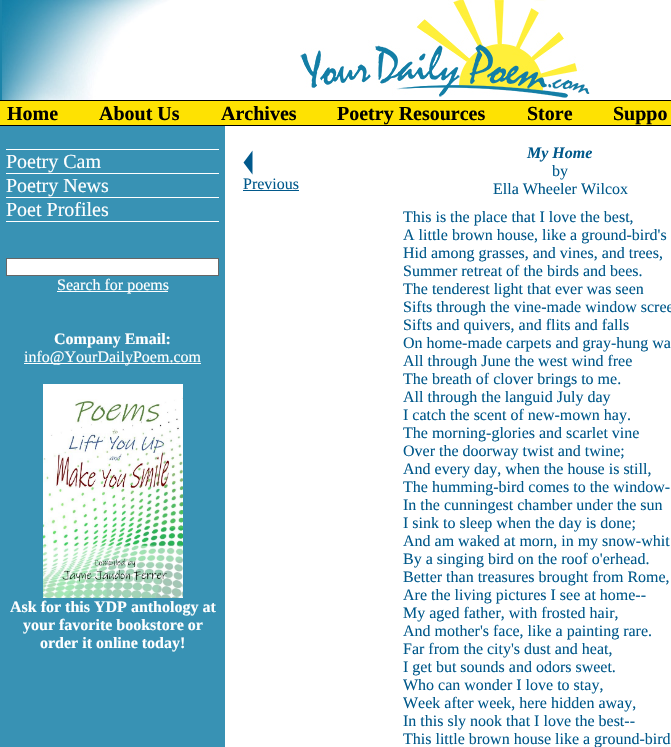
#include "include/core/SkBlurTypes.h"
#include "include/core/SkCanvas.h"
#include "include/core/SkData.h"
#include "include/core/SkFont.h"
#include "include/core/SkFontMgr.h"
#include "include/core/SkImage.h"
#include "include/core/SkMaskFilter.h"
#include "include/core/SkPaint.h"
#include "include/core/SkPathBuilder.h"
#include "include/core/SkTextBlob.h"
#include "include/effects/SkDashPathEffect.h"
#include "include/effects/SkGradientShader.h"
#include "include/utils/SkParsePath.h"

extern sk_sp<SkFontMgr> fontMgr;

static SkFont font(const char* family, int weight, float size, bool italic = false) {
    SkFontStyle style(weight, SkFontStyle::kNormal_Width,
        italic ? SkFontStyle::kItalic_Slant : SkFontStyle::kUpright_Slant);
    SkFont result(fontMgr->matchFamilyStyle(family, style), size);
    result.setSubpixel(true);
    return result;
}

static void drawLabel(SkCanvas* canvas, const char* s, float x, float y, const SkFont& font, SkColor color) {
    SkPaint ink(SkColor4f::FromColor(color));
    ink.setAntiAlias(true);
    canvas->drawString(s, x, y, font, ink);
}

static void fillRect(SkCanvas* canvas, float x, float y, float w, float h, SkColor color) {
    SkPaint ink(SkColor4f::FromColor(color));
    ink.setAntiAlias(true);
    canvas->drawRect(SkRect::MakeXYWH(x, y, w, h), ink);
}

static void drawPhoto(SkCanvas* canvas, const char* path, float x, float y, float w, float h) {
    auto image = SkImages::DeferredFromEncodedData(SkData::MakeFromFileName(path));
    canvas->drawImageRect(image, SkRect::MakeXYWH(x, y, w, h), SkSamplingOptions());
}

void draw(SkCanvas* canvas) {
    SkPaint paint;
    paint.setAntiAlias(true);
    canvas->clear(0xFFFFFFFF);
    fillRect(canvas, 0, 100, 671, 1, 0xFF000000);
    fillRect(canvas, 0, 0, 2, 100, 0xFF1C84A9);
    drawPhoto(canvas, "assets/img1.png", 2, 0, 175, 100);
    drawPhoto(canvas, "assets/img2.png", 300, 0, 290, 98);
    fillRect(canvas, 0, 101, 671, 24, 0xFFFEE202);
    fillRect(canvas, 0, 125, 671, 1, 0xFF000000);
    SkFont font1 = font("Liberation Serif", 700, 20);
    drawLabel(canvas, "Home", 7, 120, font1, 0xFF000000);
    drawLabel(canvas, "About Us", 99, 120, font1, 0xFF000000);
    drawLabel(canvas, "Archives", 221, 120, font1, 0xFF000000);
    drawLabel(canvas, "Poetry Resources", 337, 120, font1, 0xFF000000);
    drawLabel(canvas, "Store", 527, 120, font1, 0xFF000000);
    drawLabel(canvas, "Suppo", 613, 120, font1, 0xFF000000);
    fillRect(canvas, 0, 126, 225, 621, 0xFF3892B4);
    fillRect(canvas, 6, 221, 213, 1, 0xFFFFFFFF);
    fillRect(canvas, 6, 149, 213, 1, 0xFFFFFFFF);
    SkFont font2 = font("Liberation Serif", 400, 20);
    drawLabel(canvas, "Poetry Cam", 6, 168, font2, 0xFFFFFFFF);
    fillRect(canvas, 6, 173, 213, 1, 0xFFFFFFFF);
    drawLabel(canvas, "Poetry News", 6, 192, font2, 0xFFFFFFFF);
    fillRect(canvas, 6, 197, 213, 1, 0xFFFFFFFF);
    drawLabel(canvas, "Poet Profiles", 6, 216, font2, 0xFFFFFFFF);
    paint.setColor(0xFFFFFFFF);
    canvas->drawRect(SkRect::MakeXYWH(6.5f, 258.5f, 212, 17), paint);
    paint.setStroke(true);
    paint.setStrokeWidth(1);
    paint.setColor(0xFF666666);
    canvas->drawRect(SkRect::MakeXYWH(6.5f, 258.5f, 212, 17), paint);
    fillRect(canvas, 57, 291, 111, 1, 0xFFFFFFFF);
    SkFont font3 = font("Liberation Serif", 400, 16);
    drawLabel(canvas, "Search for poems", 57, 290, font3, 0xFFFFFFFF);
    SkFont font4 = font("Liberation Serif", 700, 16);
    drawLabel(canvas, "Company Email:", 54, 344, font4, 0xFFFFFFFF);
    fillRect(canvas, 24, 363, 177, 1, 0xFFFFFFFF);
    drawLabel(canvas, "info@YourDailyPoem.com", 24, 362, font3, 0xFFFFFFFF);
    drawPhoto(canvas, "assets/img3.png", 43, 384, 140, 214);
    drawLabel(canvas, "Ask for this YDP anthology at", 10, 612, font4, 0xFFFFFFFF);
    drawLabel(canvas, "your favorite bookstore or", 23, 630, font4, 0xFFFFFFFF);
    drawLabel(canvas, "order it online today!", 40, 648, font4, 0xFFFFFFFF);
    drawPhoto(canvas, "assets/img4.png", 243, 150, 10, 25);
    drawLabel(canvas, "Previous", 243, 189, font3, 0xFF01598B);
    fillRect(canvas, 243, 190, 56, 1, 0xFF01598B);
    SkFont font5 = font("Liberation Serif", 700, 16, true);
    drawLabel(canvas, "My Home", 527, 158, font5, 0xFF01598B);
    drawLabel(canvas, "by", 552, 176, font3, 0xFF01598B);
    drawLabel(canvas, "Ella Wheeler Wilcox", 493, 194, font3, 0xFF01598B);
    drawLabel(canvas, "This is the place that I love the best,", 403, 222, font3, 0xFF01598B);
    drawLabel(canvas, "A little brown house, like a ground-bird's", 403, 240, font3, 0xFF01598B);
    drawLabel(canvas, "Hid among grasses, and vines, and trees,", 403, 258, font3, 0xFF01598B);
    drawLabel(canvas, "Summer retreat of the birds and bees.", 403, 276, font3, 0xFF01598B);
    drawLabel(canvas, "The tenderest light that ever was seen", 403, 294, font3, 0xFF01598B);
    drawLabel(canvas, "Sifts through the vine-made window scree", 403, 312, font3, 0xFF01598B);
    drawLabel(canvas, "Sifts and quivers, and flits and falls", 403, 330, font3, 0xFF01598B);
    drawLabel(canvas, "On home-made carpets and gray-hung wa", 403, 348, font3, 0xFF01598B);
    drawLabel(canvas, "All through June the west wind free", 403, 366, font3, 0xFF01598B);
    drawLabel(canvas, "The breath of clover brings to me.", 403, 384, font3, 0xFF01598B);
    drawLabel(canvas, "All through the languid July day", 403, 402, font3, 0xFF01598B);
    drawLabel(canvas, "I catch the scent of new-mown hay.", 403, 420, font3, 0xFF01598B);
    drawLabel(canvas, "The morning-glories and scarlet vine", 403, 438, font3, 0xFF01598B);
    drawLabel(canvas, "Over the doorway twist and twine;", 403, 456, font3, 0xFF01598B);
    drawLabel(canvas, "And every day, when the house is still,", 403, 474, font3, 0xFF01598B);
    drawLabel(canvas, "The humming-bird comes to the window-", 403, 492, font3, 0xFF01598B);
    drawLabel(canvas, "In the cunningest chamber under the sun", 403, 510, font3, 0xFF01598B);
    drawLabel(canvas, "I sink to sleep when the day is done;", 403, 528, font3, 0xFF01598B);
    drawLabel(canvas, "And am waked at morn, in my snow-whit", 403, 546, font3, 0xFF01598B);
    drawLabel(canvas, "By a singing bird on the roof o'erhead.", 403, 564, font3, 0xFF01598B);
    drawLabel(canvas, "Better than treasures brought from Rome,", 403, 582, font3, 0xFF01598B);
    drawLabel(canvas, "Are the living pictures I see at home--", 403, 600, font3, 0xFF01598B);
    drawLabel(canvas, "My aged father, with frosted hair,", 403, 618, font3, 0xFF01598B);
    drawLabel(canvas, "And mother's face, like a painting rare.", 403, 636, font3, 0xFF01598B);
    drawLabel(canvas, "Far from the city's dust and heat,", 403, 654, font3, 0xFF01598B);
    drawLabel(canvas, "I get but sounds and odors sweet.", 403, 672, font3, 0xFF01598B);
    drawLabel(canvas, "Who can wonder I love to stay,", 403, 690, font3, 0xFF01598B);
    drawLabel(canvas, "Week after week, here hidden away,", 403, 708, font3, 0xFF01598B);
    drawLabel(canvas, "In this sly nook that I love the best--", 403, 726, font3, 0xFF01598B);
    drawLabel(canvas, "This little brown house like a ground-bird", 403, 744, font3, 0xFF01598B);
}
